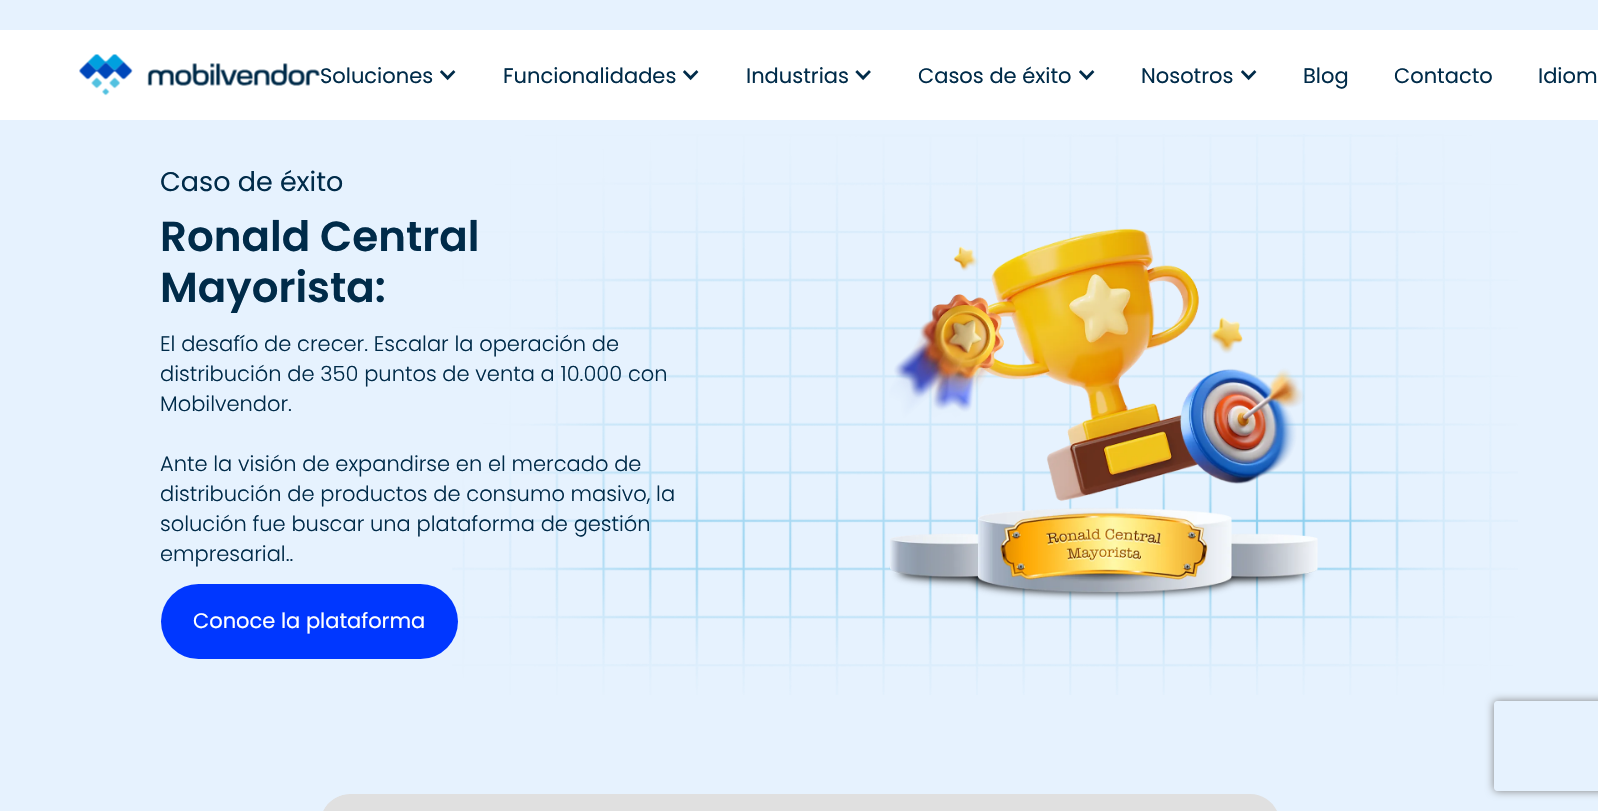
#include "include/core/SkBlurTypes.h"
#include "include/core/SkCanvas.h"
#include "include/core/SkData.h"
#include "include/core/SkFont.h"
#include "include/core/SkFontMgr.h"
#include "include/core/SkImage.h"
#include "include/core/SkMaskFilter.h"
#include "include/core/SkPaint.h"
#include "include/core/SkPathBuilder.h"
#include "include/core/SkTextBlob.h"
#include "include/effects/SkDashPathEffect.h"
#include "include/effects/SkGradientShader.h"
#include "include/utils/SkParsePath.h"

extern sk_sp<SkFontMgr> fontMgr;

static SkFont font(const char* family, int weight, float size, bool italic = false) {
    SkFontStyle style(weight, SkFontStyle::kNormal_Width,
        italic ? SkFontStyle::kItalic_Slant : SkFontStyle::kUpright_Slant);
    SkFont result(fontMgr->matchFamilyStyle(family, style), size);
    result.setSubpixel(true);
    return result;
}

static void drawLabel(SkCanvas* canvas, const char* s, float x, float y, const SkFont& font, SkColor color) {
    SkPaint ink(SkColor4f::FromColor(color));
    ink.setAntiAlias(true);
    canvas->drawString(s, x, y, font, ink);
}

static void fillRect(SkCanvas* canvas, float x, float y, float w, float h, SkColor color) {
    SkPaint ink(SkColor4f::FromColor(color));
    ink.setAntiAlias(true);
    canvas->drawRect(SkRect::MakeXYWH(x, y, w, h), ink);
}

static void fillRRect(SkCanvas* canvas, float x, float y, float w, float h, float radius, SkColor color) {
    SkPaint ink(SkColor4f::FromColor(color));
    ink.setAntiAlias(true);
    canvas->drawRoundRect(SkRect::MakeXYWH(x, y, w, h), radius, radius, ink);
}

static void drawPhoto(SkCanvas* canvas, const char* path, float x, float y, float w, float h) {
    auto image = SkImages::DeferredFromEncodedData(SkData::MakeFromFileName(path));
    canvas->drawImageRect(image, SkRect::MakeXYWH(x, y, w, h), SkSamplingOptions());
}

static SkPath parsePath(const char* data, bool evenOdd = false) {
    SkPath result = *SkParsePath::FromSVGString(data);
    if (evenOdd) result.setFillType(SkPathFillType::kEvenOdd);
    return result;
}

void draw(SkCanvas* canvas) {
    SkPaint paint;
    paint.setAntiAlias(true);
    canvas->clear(0xFFE6F2FE);
    fillRect(canvas, 0, 30, 1598, 90, 0xFFFFFFFF);
    drawPhoto(canvas, "assets/img1.png", 79, 54, 241, 42);
    SkFont font1 = font("Poppins", 400, 21);
    drawLabel(canvas, "Soluciones", 320, 83, font1, 0xFF002B49);
    drawPhoto(canvas, "assets/img2.png", 440, 70, 16, 11);
    drawLabel(canvas, "Funcionalidades", 503, 83, font1, 0xFF002B49);
    drawPhoto(canvas, "assets/img2.png", 683, 70, 16, 11);
    drawLabel(canvas, "Industrias", 746, 83, font1, 0xFF002B49);
    drawPhoto(canvas, "assets/img3.png", 855, 70, 16, 11);
    drawLabel(canvas, "Casos de éxito", 918, 83, font1, 0xFF002B49);
    drawPhoto(canvas, "assets/img2.png", 1079, 70, 16, 11);
    drawLabel(canvas, "Nosotros", 1141, 83, font1, 0xFF002B49);
    drawPhoto(canvas, "assets/img2.png", 1241, 70, 16, 11);
    drawLabel(canvas, "Blog", 1303, 83, font1, 0xFF002B49);
    drawLabel(canvas, "Contacto", 1394, 83, font1, 0xFF002B49);
    drawLabel(canvas, "Idiom", 1538, 83, font1, 0xFF002B49);
    drawPhoto(canvas, "assets/img4.png", 452, 134, 1066, 561);
    SkFont font2 = font("Poppins", 400, 27);
    drawLabel(canvas, "Caso de éxito", 160, 191, font2, 0xFF002B49);
    SkFont font3 = font("Poppins", 600, 42);
    drawLabel(canvas, "Ronald Central", 160, 251, font3, 0xFF002B49);
    drawLabel(canvas, "Mayorista:", 160, 302, font3, 0xFF002B49);
    SkFont font4 = font("Poppins", 300, 21);
    drawLabel(canvas, "El desafío de crecer. Escalar la operación de", 160, 351, font4, 0xFF002B49);
    drawLabel(canvas, "distribución de 350 puntos de venta a 10.000 con", 160, 381, font4, 0xFF002B49);
    drawLabel(canvas, "Mobilvendor.", 160, 411, font4, 0xFF002B49);
    drawLabel(canvas, "Ante la visión de expandirse en el mercado de", 160, 471, font4, 0xFF002B49);
    drawLabel(canvas, "distribución de productos de consumo masivo, la", 160, 501, font4, 0xFF002B49);
    drawLabel(canvas, "solución fue buscar una plataforma de gestión", 160, 531, font4, 0xFF002B49);
    drawLabel(canvas, "empresarial..", 160, 561, font4, 0xFF002B49);
    fillRRect(canvas, 161, 584, 297, 75, 37.5f, 0xFF0037FF);
    drawLabel(canvas, "Conoce la plataforma", 193, 628, font1, 0xFFFFFFFF);
    drawPhoto(canvas, "assets/img5.png", 889, 228, 429, 372);
    canvas->save();
    canvas->clipPath(parsePath("M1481 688H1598V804H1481ZM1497 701H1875C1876.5 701 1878 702.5 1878 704V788C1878 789.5 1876.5 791 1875 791H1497C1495.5 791 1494 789.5 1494 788V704C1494 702.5 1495.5 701 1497 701Z", true), true);
    paint.setColor(0xFF808080);
    paint.setMaskFilter(SkMaskFilter::MakeBlur(kNormal_SkBlurStyle, 4));
    canvas->drawRoundRect(SkRect::MakeXYWH(1494, 701, 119, 90), 3, 3, paint);
    paint.setMaskFilter(nullptr);
    canvas->restore();
    canvas->save();
    canvas->clipPath(parsePath("M350 794H1250C1266.5 794 1280 807.5 1280 824V1302C1280 1318.5 1266.5 1332 1250 1332H350C333.5 1332 320 1318.5 320 1302V824C320 807.5 333.5 794 350 794Z"), true);
    paint.setColor(0xFFE0E0E0);
    canvas->drawPath(parsePath("M350 794H1279V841H350C333.5 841 320 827.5 320 811V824C320 807.5 333.5 794 350 794Z"), paint);
    canvas->restore();
}
